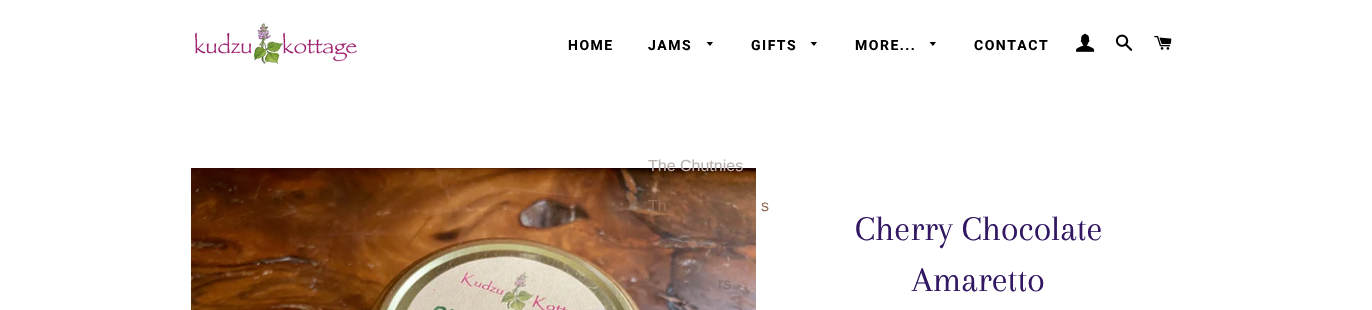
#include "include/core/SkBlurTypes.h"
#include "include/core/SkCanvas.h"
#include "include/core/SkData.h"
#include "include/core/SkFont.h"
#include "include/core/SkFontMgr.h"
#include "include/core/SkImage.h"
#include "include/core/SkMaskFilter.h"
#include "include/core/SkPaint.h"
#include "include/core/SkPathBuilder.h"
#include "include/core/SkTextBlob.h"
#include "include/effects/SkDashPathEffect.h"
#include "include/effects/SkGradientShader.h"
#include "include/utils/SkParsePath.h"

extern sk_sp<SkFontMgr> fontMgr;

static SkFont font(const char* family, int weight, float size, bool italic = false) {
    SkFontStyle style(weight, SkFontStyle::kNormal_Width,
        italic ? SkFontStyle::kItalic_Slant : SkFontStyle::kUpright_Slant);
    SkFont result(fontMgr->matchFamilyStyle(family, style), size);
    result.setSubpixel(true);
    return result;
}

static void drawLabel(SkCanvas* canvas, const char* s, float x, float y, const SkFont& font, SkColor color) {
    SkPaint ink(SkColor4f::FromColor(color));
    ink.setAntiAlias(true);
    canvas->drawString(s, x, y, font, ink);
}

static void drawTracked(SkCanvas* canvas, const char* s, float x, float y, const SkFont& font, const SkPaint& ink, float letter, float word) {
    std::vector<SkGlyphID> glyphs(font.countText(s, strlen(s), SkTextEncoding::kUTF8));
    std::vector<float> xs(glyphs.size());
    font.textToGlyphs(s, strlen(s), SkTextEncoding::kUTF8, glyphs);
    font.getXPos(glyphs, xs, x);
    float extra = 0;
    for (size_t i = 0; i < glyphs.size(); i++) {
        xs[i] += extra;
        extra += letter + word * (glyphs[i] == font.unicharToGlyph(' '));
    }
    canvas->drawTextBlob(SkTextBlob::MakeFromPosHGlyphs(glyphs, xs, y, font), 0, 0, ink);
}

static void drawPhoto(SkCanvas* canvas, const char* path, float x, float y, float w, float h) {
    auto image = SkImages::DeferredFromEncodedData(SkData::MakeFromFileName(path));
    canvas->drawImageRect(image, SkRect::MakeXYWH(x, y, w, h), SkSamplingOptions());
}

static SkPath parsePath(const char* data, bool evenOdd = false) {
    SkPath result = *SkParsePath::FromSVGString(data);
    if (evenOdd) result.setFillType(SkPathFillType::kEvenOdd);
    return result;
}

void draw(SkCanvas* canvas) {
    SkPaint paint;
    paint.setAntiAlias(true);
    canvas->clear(0xFFFFFFFF);
    drawPhoto(canvas, "assets/img1.png", 195, 23, 162, 41);
    SkFont font1 = font("Roboto", 700, 14);
    paint.setColor(0xFF000000);
    drawTracked(canvas, "HOME", 568, 50, font1, paint, 1.5f, 0);
    drawTracked(canvas, "JAMS", 648, 50, font1, paint, 1.5f, 0);
    canvas->drawPath(parsePath("M706.5 42L710 46L713 42Z"), paint);
    drawPhoto(canvas, "assets/img5.png", 191, 168, 565, 142);
    SkFont font2 = font("Liberation Sans", 400, 16);
    drawLabel(canvas, "The Chutnies", 648, 171, font2, 0xFFBBB1AD);
    drawLabel(canvas, "Th", 648, 211, font2, 0xFF956F59);
    drawLabel(canvas, "s", 761, 211, font2, 0xFF956F59);
    drawLabel(canvas, "rs", 718, 289, font2, 0xFF87706E);
    drawTracked(canvas, "GIFTS", 751, 50, font1, paint, 1.5f, 0);
    canvas->drawPath(parsePath("M810.5 42L814 46L817 42Z"), paint);
    drawTracked(canvas, "MORE...", 855, 50, font1, paint, 1.5f, 0);
    canvas->drawPath(parsePath("M929.5 42L933 46L936 42Z"), paint);
    drawTracked(canvas, "CONTACT", 974, 50, font1, paint, 1.5f, 0);
    drawPhoto(canvas, "assets/img2.png", 1076, 33, 19, 19);
    drawPhoto(canvas, "assets/img3.png", 1115, 34, 18, 17);
    drawPhoto(canvas, "assets/img4.png", 1154, 35, 18, 15);
    SkFont font3 = font("Arapey", 400, 36);
    drawLabel(canvas, "Cherry Chocolate", 855, 240, font3, 0xFF321863);
    drawLabel(canvas, "Amaretto", 912, 291, font3, 0xFF321863);
}
